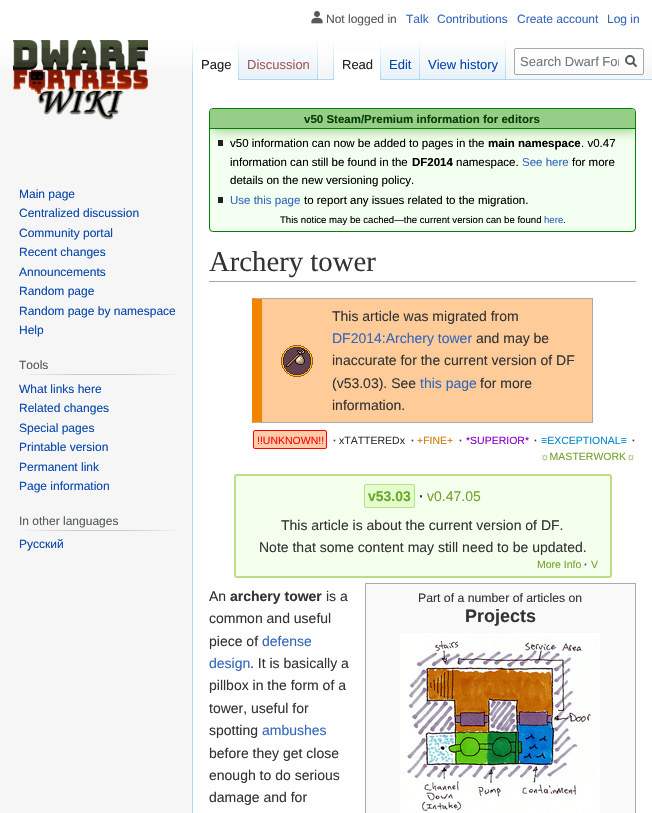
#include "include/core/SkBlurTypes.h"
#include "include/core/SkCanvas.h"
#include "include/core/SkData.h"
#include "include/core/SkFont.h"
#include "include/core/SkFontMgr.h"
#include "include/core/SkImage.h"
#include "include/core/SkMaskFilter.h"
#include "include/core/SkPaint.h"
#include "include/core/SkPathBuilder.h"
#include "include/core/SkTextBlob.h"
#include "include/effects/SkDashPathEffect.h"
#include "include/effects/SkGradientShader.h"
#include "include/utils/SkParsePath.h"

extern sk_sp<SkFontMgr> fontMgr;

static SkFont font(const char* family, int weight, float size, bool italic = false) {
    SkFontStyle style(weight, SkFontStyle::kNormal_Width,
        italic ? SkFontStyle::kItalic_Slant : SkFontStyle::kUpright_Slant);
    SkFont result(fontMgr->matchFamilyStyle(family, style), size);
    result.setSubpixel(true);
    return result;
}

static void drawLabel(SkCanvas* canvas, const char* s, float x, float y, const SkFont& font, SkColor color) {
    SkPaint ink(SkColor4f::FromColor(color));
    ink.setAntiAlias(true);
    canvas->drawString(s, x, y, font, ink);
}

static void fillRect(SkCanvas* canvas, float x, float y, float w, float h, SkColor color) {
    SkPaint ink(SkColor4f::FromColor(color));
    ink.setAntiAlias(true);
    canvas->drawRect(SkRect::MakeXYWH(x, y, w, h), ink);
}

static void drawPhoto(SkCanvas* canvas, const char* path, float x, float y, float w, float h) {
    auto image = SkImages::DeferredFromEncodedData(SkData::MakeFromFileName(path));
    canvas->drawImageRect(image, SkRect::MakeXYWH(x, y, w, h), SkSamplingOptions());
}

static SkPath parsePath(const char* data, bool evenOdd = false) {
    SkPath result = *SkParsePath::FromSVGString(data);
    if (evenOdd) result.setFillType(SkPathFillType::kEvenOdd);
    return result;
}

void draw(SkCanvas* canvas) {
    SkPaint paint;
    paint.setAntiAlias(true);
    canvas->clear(0xFFF6F6F6);
    {
        const SkColor colors[] = {0xFFFFFFFF, 0xFFF6F6F6};
        const float stops[] = {0.5f, 1};
        const SkPoint ends[] = {{326, 0}, {326, 80}};
        paint.setShader(SkGradientShader::MakeLinear(ends, colors, stops, 2, SkTileMode::kClamp));
        paint.setAlpha(255);
    }
    canvas->drawRect(SkRect::MakeXYWH(0, 0, 652, 69), paint);
    drawPhoto(canvas, "assets/img1.png", 311, 11, 12, 13);
    SkFont font1 = font("Liberation Sans", 400, 12);
    drawLabel(canvas, "Not logged in", 326, 23, font1, 0xFF54595D);
    drawLabel(canvas, "Talk", 406, 23, font1, 0xFF3366BB);
    drawLabel(canvas, "Contributions", 437, 23, font1, 0xFF3366BB);
    drawLabel(canvas, "Create account", 517, 23, font1, 0xFF3366BB);
    drawLabel(canvas, "Log in", 607, 23, font1, 0xFF3366BB);
    fillRect(canvas, 192, 79, 1, 734, 0xFFA7D7F9);
    {
        const SkColor colors[] = {0x00A7D7F9, 0xFFA7D7F9};
        const float stops[] = {0, 1};
        const SkPoint ends[] = {{193, 40}, {193, 80}};
        paint.setShader(SkGradientShader::MakeLinear(ends, colors, stops, 2, SkTileMode::kClamp));
        paint.setAlpha(255);
    }
    canvas->drawRect(SkRect::MakeXYWH(192, 40, 1, 40), paint);
    fillRect(canvas, 193, 51, 45, 29, 0xFFFFFFFF);
    {
        const SkColor colors[] = {0xFFFFFFFF, 0xFFA7D7F9};
        const float stops[] = {0, 1};
        const SkPoint ends[] = {{239, 40}, {239, 80}};
        paint.setShader(SkGradientShader::MakeLinear(ends, colors, stops, 2, SkTileMode::kClamp));
        paint.setAlpha(255);
    }
    canvas->drawRect(SkRect::MakeXYWH(238, 40, 1, 40), paint);
    SkFont font2 = font("Liberation Sans", 400, 13);
    drawLabel(canvas, "Page", 201, 69, font2, 0xFF202122);
    {
        const SkColor colors[] = {0xFF77C1F6, 0xFFE8F2F8, 0xFFFFFFFF};
        const float stops[] = {0, 0.03f, 1};
        const SkPoint ends[] = {{279, 80}, {279, 40}};
        paint.setShader(SkGradientShader::MakeLinear(ends, colors, stops, 3, SkTileMode::kClamp));
        paint.setAlpha(255);
    }
    canvas->drawRect(SkRect::MakeXYWH(239, 46, 79, 34), paint);
    {
        const SkColor colors[] = {0x00A7D7F9, 0xFFA7D7F9};
        const float stops[] = {0, 1};
        const SkPoint ends[] = {{318, 40}, {318, 80}};
        paint.setShader(SkGradientShader::MakeLinear(ends, colors, stops, 2, SkTileMode::kClamp));
        paint.setAlpha(255);
    }
    canvas->drawRect(SkRect::MakeXYWH(317, 40, 1, 40), paint);
    drawLabel(canvas, "Discussion", 247, 69, font2, 0xFFA55858);
    fillRect(canvas, 318, 79, 334, 1, 0xFFA7D7F9);
    {
        const SkColor colors[] = {0x00A7D7F9, 0xFFA7D7F9};
        const float stops[] = {0, 1};
        const SkPoint ends[] = {{334, 40}, {334, 80}};
        paint.setShader(SkGradientShader::MakeLinear(ends, colors, stops, 2, SkTileMode::kClamp));
        paint.setAlpha(255);
    }
    canvas->drawRect(SkRect::MakeXYWH(333, 40, 1, 40), paint);
    fillRect(canvas, 334, 51, 46, 29, 0xFFFFFFFF);
    {
        const SkColor colors[] = {0xFFFFFFFF, 0xFFA7D7F9};
        const float stops[] = {0, 1};
        const SkPoint ends[] = {{381, 40}, {381, 80}};
        paint.setShader(SkGradientShader::MakeLinear(ends, colors, stops, 2, SkTileMode::kClamp));
        paint.setAlpha(255);
    }
    canvas->drawRect(SkRect::MakeXYWH(380, 40, 1, 40), paint);
    drawLabel(canvas, "Read", 342, 69, font2, 0xFF202122);
    {
        const SkColor colors[] = {0xFF77C1F6, 0xFFE8F2F8, 0xFFFFFFFF};
        const float stops[] = {0, 0.03f, 1};
        const SkPoint ends[] = {{401, 80}, {401, 40}};
        paint.setShader(SkGradientShader::MakeLinear(ends, colors, stops, 3, SkTileMode::kClamp));
        paint.setAlpha(255);
    }
    canvas->drawRect(SkRect::MakeXYWH(381, 46, 39, 33), paint);
    {
        const SkColor colors[] = {0x00A7D7F9, 0xFFA7D7F9};
        const float stops[] = {0, 1};
        const SkPoint ends[] = {{420, 40}, {420, 80}};
        paint.setShader(SkGradientShader::MakeLinear(ends, colors, stops, 2, SkTileMode::kClamp));
        paint.setAlpha(255);
    }
    canvas->drawRect(SkRect::MakeXYWH(419, 40, 1, 40), paint);
    drawLabel(canvas, "Edit", 389, 69, font2, 0xFF0645AD);
    {
        const SkColor colors[] = {0xFF77C1F6, 0xFFE8F2F8, 0xFFFFFFFF};
        const float stops[] = {0, 0.03f, 1};
        const SkPoint ends[] = {{463, 80}, {463, 40}};
        paint.setShader(SkGradientShader::MakeLinear(ends, colors, stops, 3, SkTileMode::kClamp));
        paint.setAlpha(255);
    }
    canvas->drawRect(SkRect::MakeXYWH(420, 46, 86, 33), paint);
    {
        const SkColor colors[] = {0x00A7D7F9, 0xFFA7D7F9};
        const float stops[] = {0, 1};
        const SkPoint ends[] = {{506, 40}, {506, 80}};
        paint.setShader(SkGradientShader::MakeLinear(ends, colors, stops, 2, SkTileMode::kClamp));
        paint.setAlpha(255);
    }
    canvas->drawRect(SkRect::MakeXYWH(505, 40, 1, 40), paint);
    drawLabel(canvas, "View history", 428, 69, font2, 0xFF0645AD);
    paint.setShader(nullptr);
    paint.setColor(0x80FFFFFF);
    canvas->drawRoundRect(SkRect::MakeXYWH(514.5f, 48.5f, 129, 26), 1.5f, 1.5f, paint);
    paint.setStroke(true);
    paint.setStrokeWidth(1);
    paint.setColor(0xFFA2A9B1);
    canvas->drawRoundRect(SkRect::MakeXYWH(514.5f, 48.5f, 129, 26), 1.5f, 1.5f, paint);
    canvas->save();
    canvas->clipRect(SkRect::MakeXYWH(520, 54, 99, 15));
    drawLabel(canvas, "Search Dwarf For", 520, 66, font2, 0xFF72777D);
    canvas->restore();
    paint.setStrokeWidth(2);
    paint.setColor(0xFF54595D);
    canvas->drawPath(parsePath("M636.5 66.5L632.5 62.5"), paint);
    canvas->drawCircle(630, 60, 4, paint);
    drawPhoto(canvas, "assets/img2.png", 13, 40, 135, 80);
    drawLabel(canvas, "Main page", 19, 198, font1, 0xFF0645AD);
    drawLabel(canvas, "Centralized discussion", 19, 217, font1, 0xFF0645AD);
    drawLabel(canvas, "Community portal", 19, 237, font1, 0xFF0645AD);
    drawLabel(canvas, "Recent changes", 19, 256, font1, 0xFF0645AD);
    drawLabel(canvas, "Announcements", 19, 276, font1, 0xFF0645AD);
    drawLabel(canvas, "Random page", 19, 295, font1, 0xFF0645AD);
    drawLabel(canvas, "Random page by namespace", 19, 315, font1, 0xFF0645AD);
    drawLabel(canvas, "Help", 19, 334, font1, 0xFF0645AD);
    paint.setStroke(false);
    {
        const SkColor colors[] = {0xFFF6F6F6, 0xFFC8CCD1, 0xFFC8CCD1, 0xFFF6F6F6};
        const float stops[] = {0, 0.33f, 0.66f, 1};
        const SkPoint ends[] = {{19, 375}, {182, 375}};
        paint.setShader(SkGradientShader::MakeLinear(ends, colors, stops, 4, SkTileMode::kClamp));
        paint.setAlpha(255);
    }
    canvas->drawRect(SkRect::MakeXYWH(19, 374, 163, 1), paint);
    drawLabel(canvas, "Tools", 19, 369, font1, 0xFF54595D);
    drawLabel(canvas, "What links here", 19, 393, font1, 0xFF0645AD);
    drawLabel(canvas, "Related changes", 19, 412, font1, 0xFF0645AD);
    drawLabel(canvas, "Special pages", 19, 432, font1, 0xFF0645AD);
    drawLabel(canvas, "Printable version", 19, 451, font1, 0xFF0645AD);
    drawLabel(canvas, "Permanent link", 19, 471, font1, 0xFF0645AD);
    drawLabel(canvas, "Page information", 19, 490, font1, 0xFF0645AD);
    {
        const SkColor colors[] = {0xFFF6F6F6, 0xFFC8CCD1, 0xFFC8CCD1, 0xFFF6F6F6};
        const float stops[] = {0, 0.33f, 0.66f, 1};
        const SkPoint ends[] = {{19, 531}, {182, 531}};
        paint.setShader(SkGradientShader::MakeLinear(ends, colors, stops, 4, SkTileMode::kClamp));
        paint.setAlpha(255);
    }
    canvas->drawRect(SkRect::MakeXYWH(19, 530, 163, 1), paint);
    drawLabel(canvas, "In other languages", 19, 525, font1, 0xFF54595D);
    drawLabel(canvas, "Русский", 19, 548, font1, 0xFF0645AD);
    fillRect(canvas, 193, 80, 459, 733, 0xFFFFFFFF);
    paint.setShader(nullptr);
    paint.setColor(0xFFF3FFF0);
    canvas->drawRoundRect(SkRect::MakeXYWH(209.5f, 108.5f, 426, 123), 3.5f, 3.5f, paint);
    paint.setStroke(true);
    paint.setStrokeWidth(1);
    paint.setColor(0xFF008000);
    canvas->drawRoundRect(SkRect::MakeXYWH(209.5f, 108.5f, 426, 123), 3.5f, 3.5f, paint);
    canvas->save();
    canvas->clipPath(parsePath("M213 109H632C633.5 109 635 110.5 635 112V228C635 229.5 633.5 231 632 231H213C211.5 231 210 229.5 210 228V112C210 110.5 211.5 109 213 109Z"), true);
    paint.setStroke(false);
    paint.setColor(0xFF97CE87);
    paint.setMaskFilter(SkMaskFilter::MakeBlur(kNormal_SkBlurStyle, 6));
    canvas->drawRect(SkRect::MakeXYWH(212, 111, 425, 20), paint);
    paint.setMaskFilter(nullptr);
    canvas->restore();
    canvas->drawPath(parsePath("M213 109H632C633.5 109 635 110.5 635 112V129H210V112C210 110.5 211.5 109 213 109Z"), paint);
    fillRect(canvas, 210, 128, 425, 1, 0xFF008000);
    SkFont font3 = font("Liberation Sans", 700, 11.5f);
    drawLabel(canvas, "v50 Steam/Premium information for editors", 304, 123, font3, 0xFF004000);
    fillRect(canvas, 218, 140, 5, 6, 0xFF202122);
    SkFont font4 = font("Liberation Sans", 400, 11.5f);
    drawLabel(canvas, "v50 information can now be added to pages in the", 230, 147, font4, 0xFF000000);
    drawLabel(canvas, "main namespace", 488, 147, font3, 0xFF000000);
    drawLabel(canvas, ". v0.47", 581, 147, font4, 0xFF000000);
    drawLabel(canvas, "information can still be found in the", 230, 166, font4, 0xFF000000);
    drawLabel(canvas, "DF2014", 412, 166, font3, 0xFF000000);
    drawLabel(canvas, "namespace.", 456, 166, font4, 0xFF000000);
    drawLabel(canvas, "See here", 522, 166, font4, 0xFF3366BB);
    drawLabel(canvas, "for more", 572, 166, font4, 0xFF000000);
    drawLabel(canvas, "details on the new versioning policy.", 230, 184, font4, 0xFF000000);
    fillRect(canvas, 218, 197, 5, 6, 0xFF202122);
    drawLabel(canvas, "Use this page", 230, 204, font4, 0xFF3366BB);
    drawLabel(canvas, "to report any issues related to the migration.", 304, 204, font4, 0xFF000000);
    SkFont font5 = font("Liberation Sans", 400, 9.6f);
    drawLabel(canvas, "This notice may be cached—the current version can be found", 280, 223, font5, 0xFF000000);
    drawLabel(canvas, "here", 544, 223, font5, 0xFF3366BB);
    drawLabel(canvas, ".", 563, 223, font5, 0xFF000000);
    fillRect(canvas, 209, 281, 427, 1, 0xFFA2A9B1);
    SkFont font6 = font("Liberation Serif", 400, 28.75f);
    drawLabel(canvas, "Archery tower", 209, 271, font6, 0xFF333333);
    fillRect(canvas, 262, 299, 330, 123, 0xFFFFCC99);
    paint.setColor(0xFFAAAAAA);
    canvas->drawPath(parsePath("M252 298H593L592 299H262Z"), paint);
    fillRect(canvas, 592, 298, 1, 125, 0xFFAAAAAA);
    canvas->drawPath(parsePath("M593 423H252L262 422H592Z"), paint);
    paint.setColor(0xFFF28500);
    canvas->drawPath(parsePath("M252 423V298L262 299V422Z"), paint);
    drawPhoto(canvas, "assets/img3.png", 281, 345, 32, 32);
    SkFont font7 = font("Liberation Sans", 400, 14);
    drawLabel(canvas, "This article was migrated from", 332, 321, font7, 0xFF333333);
    drawLabel(canvas, "DF2014:Archery tower", 332, 343, font7, 0xFF3366BB);
    drawLabel(canvas, "and may be", 476, 343, font7, 0xFF333333);
    drawLabel(canvas, "inaccurate for the current version of DF", 332, 365, font7, 0xFF333333);
    drawLabel(canvas, "(v53.03). See", 332, 388, font7, 0xFF333333);
    drawLabel(canvas, "this page", 420, 388, font7, 0xFF3366BB);
    drawLabel(canvas, "for more", 480, 388, font7, 0xFF333333);
    drawLabel(canvas, "information.", 332, 410, font7, 0xFF333333);
    paint.setColor(0xFFFFCCAA);
    canvas->drawRoundRect(SkRect::MakeXYWH(253.5f, 430.5f, 73, 18), 1.5f, 1.5f, paint);
    paint.setStroke(true);
    paint.setColor(0xFFFF0000);
    canvas->drawRoundRect(SkRect::MakeXYWH(253.5f, 430.5f, 73, 18), 1.5f, 1.5f, paint);
    SkFont font8 = font("Liberation Sans", 400, 10.5f);
    drawLabel(canvas, "!!UNKNOWN!!", 257, 444, font8, 0xFFFF0000);
    SkFont font9 = font("Liberation Sans", 700, 10.5f);
    drawLabel(canvas, "·", 333, 444, font9, 0xFF333333);
    drawLabel(canvas, "xTATTEREDx", 339, 444, font8, 0xFF333333);
    drawLabel(canvas, "·", 411, 444, font9, 0xFF333333);
    drawLabel(canvas, "+FINE+", 417, 444, font8, 0xFFCA7A02);
    drawLabel(canvas, "·", 459, 444, font9, 0xFF333333);
    drawLabel(canvas, "*SUPERIOR*", 466, 444, font8, 0xFF8800CC);
    drawLabel(canvas, "·", 534, 444, font9, 0xFF333333);
    drawLabel(canvas, "≡EXCEPTIONAL≡", 541, 444, font8, 0xFF0088CC);
    drawLabel(canvas, "·", 632, 444, font9, 0xFF333333);
    drawLabel(canvas, "☼MASTERWORK☼", 540, 460, font8, 0xFF72A329);
    paint.setStroke(false);
    paint.setColor(0xFFF5FFEE);
    canvas->drawRoundRect(SkRect::MakeXYWH(235, 475, 376, 102), 2, 2, paint);
    paint.setStroke(true);
    paint.setStrokeWidth(2);
    paint.setColor(0xFFBBDD88);
    canvas->drawRoundRect(SkRect::MakeXYWH(235, 475, 376, 102), 2, 2, paint);
    paint.setStroke(false);
    paint.setColor(0xFFE2FDCE);
    canvas->drawRoundRect(SkRect::MakeXYWH(364.5f, 484.5f, 50, 23), 1.5f, 1.5f, paint);
    paint.setStroke(true);
    paint.setStrokeWidth(1);
    paint.setColor(0xFFBBDD88);
    canvas->drawRoundRect(SkRect::MakeXYWH(364.5f, 484.5f, 50, 23), 1.5f, 1.5f, paint);
    SkFont font10 = font("Liberation Sans", 700, 14);
    drawLabel(canvas, "v53.03", 368, 501, font10, 0xFF72A329);
    drawLabel(canvas, "·", 419, 501, font10, 0xFF333333);
    drawLabel(canvas, "v0.47.05", 427, 501, font7, 0xFF72A329);
    drawLabel(canvas, "This article is about the current version of DF.", 281, 530, font7, 0xFF333333);
    drawLabel(canvas, "Note that some content may still need to be updated.", 259, 552, font7, 0xFF333333);
    drawLabel(canvas, "More Info", 537, 568, font8, 0xFF72A329);
    drawLabel(canvas, "·", 584, 568, font9, 0xFF333333);
    drawLabel(canvas, "V", 591, 568, font8, 0xFF72A329);
    drawLabel(canvas, "An", 209, 601, font7, 0xFF333333);
    drawLabel(canvas, "archery tower", 230, 601, font10, 0xFF333333);
    drawLabel(canvas, "is a", 326, 601, font7, 0xFF333333);
    drawLabel(canvas, "common and useful", 209, 623, font7, 0xFF333333);
    drawLabel(canvas, "piece of", 209, 646, font7, 0xFF333333);
    drawLabel(canvas, "defense", 262, 646, font7, 0xFF3366BB);
    drawLabel(canvas, "design", 209, 668, font7, 0xFF3366BB);
    drawLabel(canvas, ". It is basically a", 250, 668, font7, 0xFF333333);
    drawLabel(canvas, "pillbox in the form of a", 209, 690, font7, 0xFF333333);
    drawLabel(canvas, "tower, useful for", 209, 713, font7, 0xFF333333);
    drawLabel(canvas, "spotting", 209, 735, font7, 0xFF333333);
    drawLabel(canvas, "ambushes", 262, 735, font7, 0xFF3366BB);
    drawLabel(canvas, "before they get close", 209, 758, font7, 0xFF333333);
    drawLabel(canvas, "enough to do serious", 209, 780, font7, 0xFF333333);
    drawLabel(canvas, "damage and for", 209, 802, font7, 0xFF333333);
    paint.setStroke(false);
    paint.setColor(0xFFF9F9F9);
    canvas->drawRect(SkRect::MakeXYWH(365.5f, 583.5f, 270, 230), paint);
    paint.setStroke(true);
    paint.setColor(0xFFAAAAAA);
    canvas->drawRect(SkRect::MakeXYWH(365.5f, 583.5f, 270, 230), paint);
    SkFont font11 = font("Liberation Sans", 400, 12.25f);
    drawLabel(canvas, "Part of a number of articles on", 418, 602, font11, 0xFF333333);
    SkFont font12 = font("Liberation Sans", 700, 18);
    drawLabel(canvas, "Projects", 465, 622, font12, 0xFF333333);
    drawPhoto(canvas, "assets/img4.png", 400, 633, 200, 180);
}
